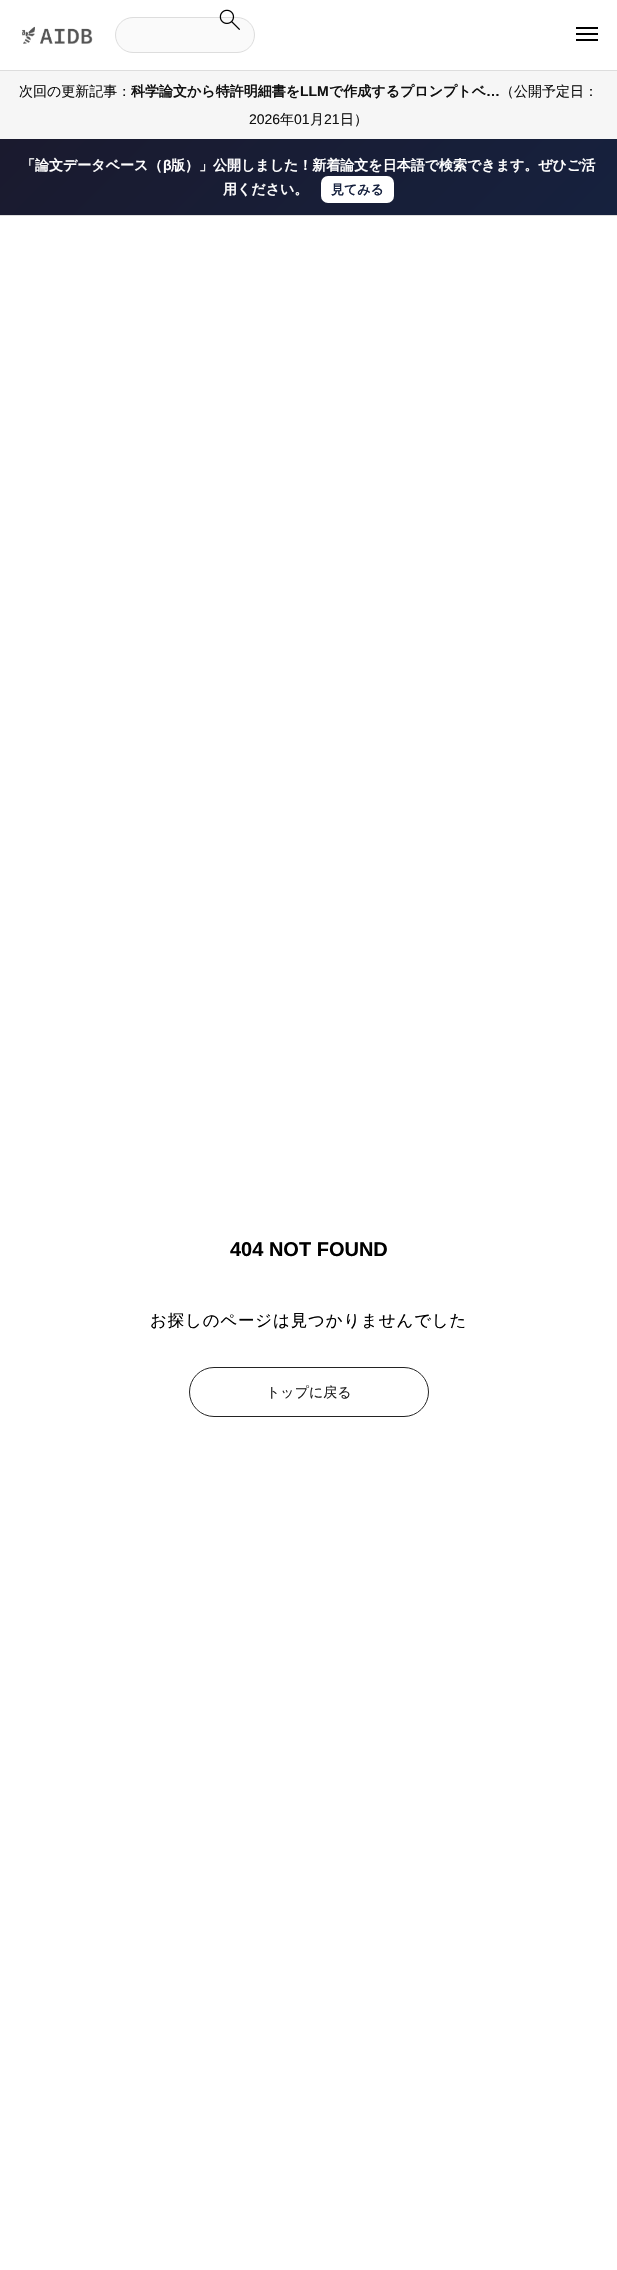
#include "include/core/SkBlurTypes.h"
#include "include/core/SkCanvas.h"
#include "include/core/SkData.h"
#include "include/core/SkFont.h"
#include "include/core/SkFontMgr.h"
#include "include/core/SkImage.h"
#include "include/core/SkMaskFilter.h"
#include "include/core/SkPaint.h"
#include "include/core/SkPathBuilder.h"
#include "include/core/SkTextBlob.h"
#include "include/effects/SkDashPathEffect.h"
#include "include/effects/SkGradientShader.h"
#include "include/utils/SkParsePath.h"

extern sk_sp<SkFontMgr> fontMgr;

static SkFont font(const char* family, int weight, float size, bool italic = false) {
    SkFontStyle style(weight, SkFontStyle::kNormal_Width,
        italic ? SkFontStyle::kItalic_Slant : SkFontStyle::kUpright_Slant);
    SkFont result(fontMgr->matchFamilyStyle(family, style), size);
    result.setSubpixel(true);
    return result;
}

static void drawLabel(SkCanvas* canvas, const char* s, float x, float y, const SkFont& font, SkColor color) {
    SkPaint ink(SkColor4f::FromColor(color));
    ink.setAntiAlias(true);
    canvas->drawString(s, x, y, font, ink);
}

static void drawTracked(SkCanvas* canvas, const char* s, float x, float y, const SkFont& font, const SkPaint& ink, float letter, float word) {
    std::vector<SkGlyphID> glyphs(font.countText(s, strlen(s), SkTextEncoding::kUTF8));
    std::vector<float> xs(glyphs.size());
    font.textToGlyphs(s, strlen(s), SkTextEncoding::kUTF8, glyphs);
    font.getXPos(glyphs, xs, x);
    float extra = 0;
    for (size_t i = 0; i < glyphs.size(); i++) {
        xs[i] += extra;
        extra += letter + word * (glyphs[i] == font.unicharToGlyph(' '));
    }
    canvas->drawTextBlob(SkTextBlob::MakeFromPosHGlyphs(glyphs, xs, y, font), 0, 0, ink);
}

static void fillRect(SkCanvas* canvas, float x, float y, float w, float h, SkColor color) {
    SkPaint ink(SkColor4f::FromColor(color));
    ink.setAntiAlias(true);
    canvas->drawRect(SkRect::MakeXYWH(x, y, w, h), ink);
}

static void fillRRect(SkCanvas* canvas, float x, float y, float w, float h, float radius, SkColor color) {
    SkPaint ink(SkColor4f::FromColor(color));
    ink.setAntiAlias(true);
    canvas->drawRoundRect(SkRect::MakeXYWH(x, y, w, h), radius, radius, ink);
}

static void drawPhoto(SkCanvas* canvas, const char* path, float x, float y, float w, float h) {
    auto image = SkImages::DeferredFromEncodedData(SkData::MakeFromFileName(path));
    canvas->drawImageRect(image, SkRect::MakeXYWH(x, y, w, h), SkSamplingOptions());
}

void draw(SkCanvas* canvas) {
    SkPaint paint;
    paint.setAntiAlias(true);
    canvas->clear(0xFFFFFFFF);
    drawPhoto(canvas, "assets/img1.png", 22, 26, 71, 18);
    paint.setColor(0xFFFAFAFA);
    canvas->drawRoundRect(SkRect::MakeXYWH(115.5f, 17.5f, 139, 35), 17.5f, 17.5f, paint);
    paint.setStroke(true);
    paint.setStrokeWidth(1);
    paint.setColor(0xFFDDDDDD);
    canvas->drawRoundRect(SkRect::MakeXYWH(115.5f, 17.5f, 139, 35), 17.5f, 17.5f, paint);
    drawPhoto(canvas, "assets/img2.png", 219, 9, 21, 21);
    fillRect(canvas, 576, 27, 22, 2, 0xFF000000);
    fillRect(canvas, 576, 33, 22, 2, 0xFF000000);
    fillRect(canvas, 576, 39, 22, 2, 0xFF000000);
    fillRect(canvas, 0, 71, 617, 68, 0xFFF6F6F6);
    fillRect(canvas, 0, 70, 617, 1, 0xFFDDDDDD);
    SkFont font1 = font("WenQuanYi Zen Hei", 500, 14);
    drawLabel(canvas, "次回の更新記事：", 19, 96, font1, 0xFF111111);
    SkFont font2 = font("WenQuanYi Zen Hei", 700, 14);
    drawLabel(canvas, "科学論文から特許明細書を", 131, 96, font2, 0xFF111111);
    SkFont font3 = font("Liberation Sans", 700, 14);
    drawLabel(canvas, "LLM", 300, 96, font3, 0xFF111111);
    drawLabel(canvas, "で作成するプロンプトベ", 329, 96, font2, 0xFF111111);
    drawLabel(canvas, "…", 486, 96, font3, 0xFF111111);
    drawLabel(canvas, "（公開予定日：", 500, 96, font1, 0xFF111111);
    SkFont font4 = font("Liberation Sans", 400, 14);
    drawLabel(canvas, "2026", 249, 124, font4, 0xFF111111);
    drawLabel(canvas, "年", 280, 124, font1, 0xFF111111);
    drawLabel(canvas, "01", 294, 124, font4, 0xFF111111);
    drawLabel(canvas, "月", 310, 124, font1, 0xFF111111);
    drawLabel(canvas, "21", 324, 124, font4, 0xFF111111);
    drawLabel(canvas, "日）", 340, 124, font1, 0xFF111111);
    paint.setStroke(false);
    {
        const SkColor colors[] = {0xFF1A1A2E, 0xFF16213E};
        const float stops[] = {0, 1};
        const SkPoint ends[] = {{135, 3.8f}, {482, 350}};
        paint.setShader(SkGradientShader::MakeLinear(ends, colors, stops, 2, SkTileMode::kClamp));
        paint.setAlpha(255);
    }
    canvas->drawRect(SkRect::MakeXYWH(0, 139, 617, 76), paint);
    drawLabel(canvas, "「論文データベース（", 21, 170, font2, 0xFFFFFFFF);
    drawLabel(canvas, "β", 163, 170, font3, 0xFFFFFFFF);
    drawLabel(canvas, "版）」公開しました！新着論文を日本語で検索できます。ぜひご活", 171, 170, font2, 0xFFFFFFFF);
    drawLabel(canvas, "用ください。", 223, 194, font2, 0xFFFFFFFF);
    fillRRect(canvas, 321, 176, 73, 27, 7, 0xFFFFFFFF);
    SkFont font5 = font("WenQuanYi Zen Hei", 700, 13);
    drawLabel(canvas, "見てみる", 331, 194, font5, 0xFF16213E);
    fillRect(canvas, 0, 215, 617, 1, 0xFFDDDDDD);
    SkFont font6 = font("Liberation Sans", 700, 20);
    drawLabel(canvas, "404 NOT FOUND", 230, 1256, font6, 0xFF000000);
    SkFont font7 = font("WenQuanYi Zen Hei", 500, 16.5f);
    paint.setShader(nullptr);
    paint.setColor(0xFF000000);
    drawTracked(canvas, "お探しのページは見つかりませんでした", 150, 1326, font7, paint, 0.8f, 0);
    paint.setStroke(true);
    paint.setColor(0xFF232323);
    canvas->drawRoundRect(SkRect::MakeXYWH(189.5f, 1367.5f, 239, 49), 24.5f, 24.5f, paint);
    drawLabel(canvas, "トップに戻る", 266, 1397, font1, 0xFF232323);
}
